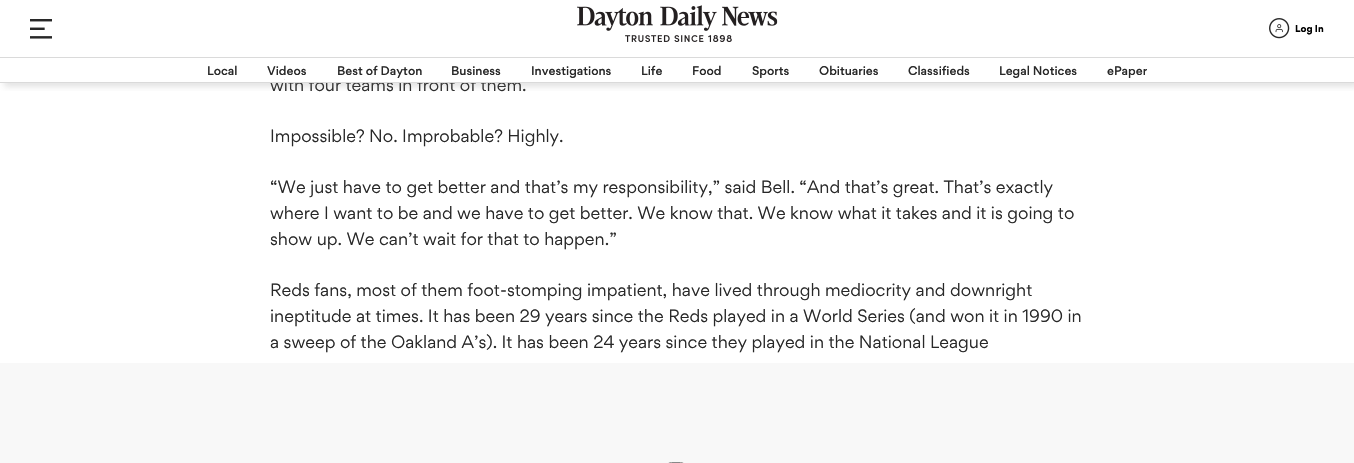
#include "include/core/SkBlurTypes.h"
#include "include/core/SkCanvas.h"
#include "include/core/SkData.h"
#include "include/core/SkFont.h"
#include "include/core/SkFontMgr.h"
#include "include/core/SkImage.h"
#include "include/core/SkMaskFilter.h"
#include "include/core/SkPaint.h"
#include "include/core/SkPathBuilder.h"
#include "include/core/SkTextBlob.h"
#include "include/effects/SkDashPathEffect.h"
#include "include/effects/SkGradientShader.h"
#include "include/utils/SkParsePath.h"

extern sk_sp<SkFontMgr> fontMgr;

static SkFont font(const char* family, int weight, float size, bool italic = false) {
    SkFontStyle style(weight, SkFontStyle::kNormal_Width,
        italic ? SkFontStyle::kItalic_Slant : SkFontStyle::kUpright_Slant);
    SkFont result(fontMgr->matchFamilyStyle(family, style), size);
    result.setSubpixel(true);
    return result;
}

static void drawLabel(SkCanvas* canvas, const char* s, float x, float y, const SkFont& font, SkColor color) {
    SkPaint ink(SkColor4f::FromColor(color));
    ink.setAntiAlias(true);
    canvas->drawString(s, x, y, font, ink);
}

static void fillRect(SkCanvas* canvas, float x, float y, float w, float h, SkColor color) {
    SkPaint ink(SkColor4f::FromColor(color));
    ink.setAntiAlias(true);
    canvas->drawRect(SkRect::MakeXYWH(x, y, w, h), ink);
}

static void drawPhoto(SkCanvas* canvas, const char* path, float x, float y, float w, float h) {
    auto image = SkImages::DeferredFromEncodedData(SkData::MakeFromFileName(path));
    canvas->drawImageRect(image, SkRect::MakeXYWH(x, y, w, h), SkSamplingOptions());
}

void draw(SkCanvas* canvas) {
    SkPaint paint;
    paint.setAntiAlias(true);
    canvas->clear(0xFFFFFFFF);
    SkFont font1 = font("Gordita", 400, 16);
    drawLabel(canvas, "with four teams in front of them.", 270, 91, font1, 0xFF282828);
    fillRect(canvas, 285, 77, 205, 5, 0xFFFFFFFF);
    drawPhoto(canvas, "assets/img1.png", 30, 19, 22, 20);
    drawPhoto(canvas, "assets/img2.png", 577, 5, 201, 37);
    drawPhoto(canvas, "assets/img3.png", 1269, 18, 21, 21);
    SkFont font2 = font("Gordita", 700, 9);
    drawLabel(canvas, "Log In", 1295, 32, font2, 0xFF000000);
    canvas->save();
    canvas->clipRect(SkRect::MakeXYWH(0, 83, 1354, 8));
    paint.setColor(0x38858585);
    paint.setMaskFilter(SkMaskFilter::MakeBlur(kNormal_SkBlurStyle, 3));
    canvas->drawRect(SkRect::MakeXYWH(4, 61, 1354, 26), paint);
    paint.setMaskFilter(nullptr);
    canvas->restore();
    fillRect(canvas, 0, 57, 1354, 1, 0xFFDADADA);
    fillRect(canvas, 0, 82, 1354, 1, 0xFFDADADA);
    SkFont font3 = font("Gordita", 500, 11.25f);
    drawLabel(canvas, "Local", 207, 75, font3, 0xFF282828);
    drawLabel(canvas, "Videos", 267, 75, font3, 0xFF282828);
    drawLabel(canvas, "Best of Dayton", 337, 75, font3, 0xFF282828);
    drawLabel(canvas, "Business", 451, 75, font3, 0xFF282828);
    drawLabel(canvas, "Investigations", 531, 75, font3, 0xFF282828);
    drawLabel(canvas, "Life", 641, 75, font3, 0xFF282828);
    drawLabel(canvas, "Food", 692, 75, font3, 0xFF282828);
    drawLabel(canvas, "Sports", 752, 75, font3, 0xFF282828);
    drawLabel(canvas, "Obituaries", 819, 75, font3, 0xFF282828);
    drawLabel(canvas, "Classifieds", 908, 75, font3, 0xFF282828);
    drawLabel(canvas, "Legal Notices", 999, 75, font3, 0xFF282828);
    drawLabel(canvas, "ePaper", 1107, 75, font3, 0xFF282828);
    drawLabel(canvas, "Impossible? No. Improbable? Highly.", 270, 142, font1, 0xFF282828);
    drawLabel(canvas, "“We just have to get better and that’s my responsibility,” said Bell. “And that’s great. That’s exactly", 270, 193, font1, 0xFF282828);
    drawLabel(canvas, "where I want to be and we have to get better. We know that. We know what it takes and it is going to", 270, 219, font1, 0xFF282828);
    drawLabel(canvas, "show up. We can’t wait for that to happen.”", 270, 245, font1, 0xFF282828);
    drawLabel(canvas, "Reds fans, most of them foot-stomping impatient, have lived through mediocrity and downright", 270, 296, font1, 0xFF282828);
    drawLabel(canvas, "ineptitude at times. It has been 29 years since the Reds played in a World Series (and won it in 1990 in", 270, 322, font1, 0xFF282828);
    drawLabel(canvas, "a sweep of the Oakland A’s). It has been 24 years since they played in the National League", 270, 348, font1, 0xFF282828);
    fillRect(canvas, 0, 363, 1354, 100, 0xE6F7F7F7);
    paint.setStroke(true);
    paint.setStrokeWidth(1);
    paint.setColor(0xFF888888);
    canvas->drawRoundRect(SkRect::MakeXYWH(665.5f, 462.5f, 21, 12), 10.5f, 10.5f, paint);
}
